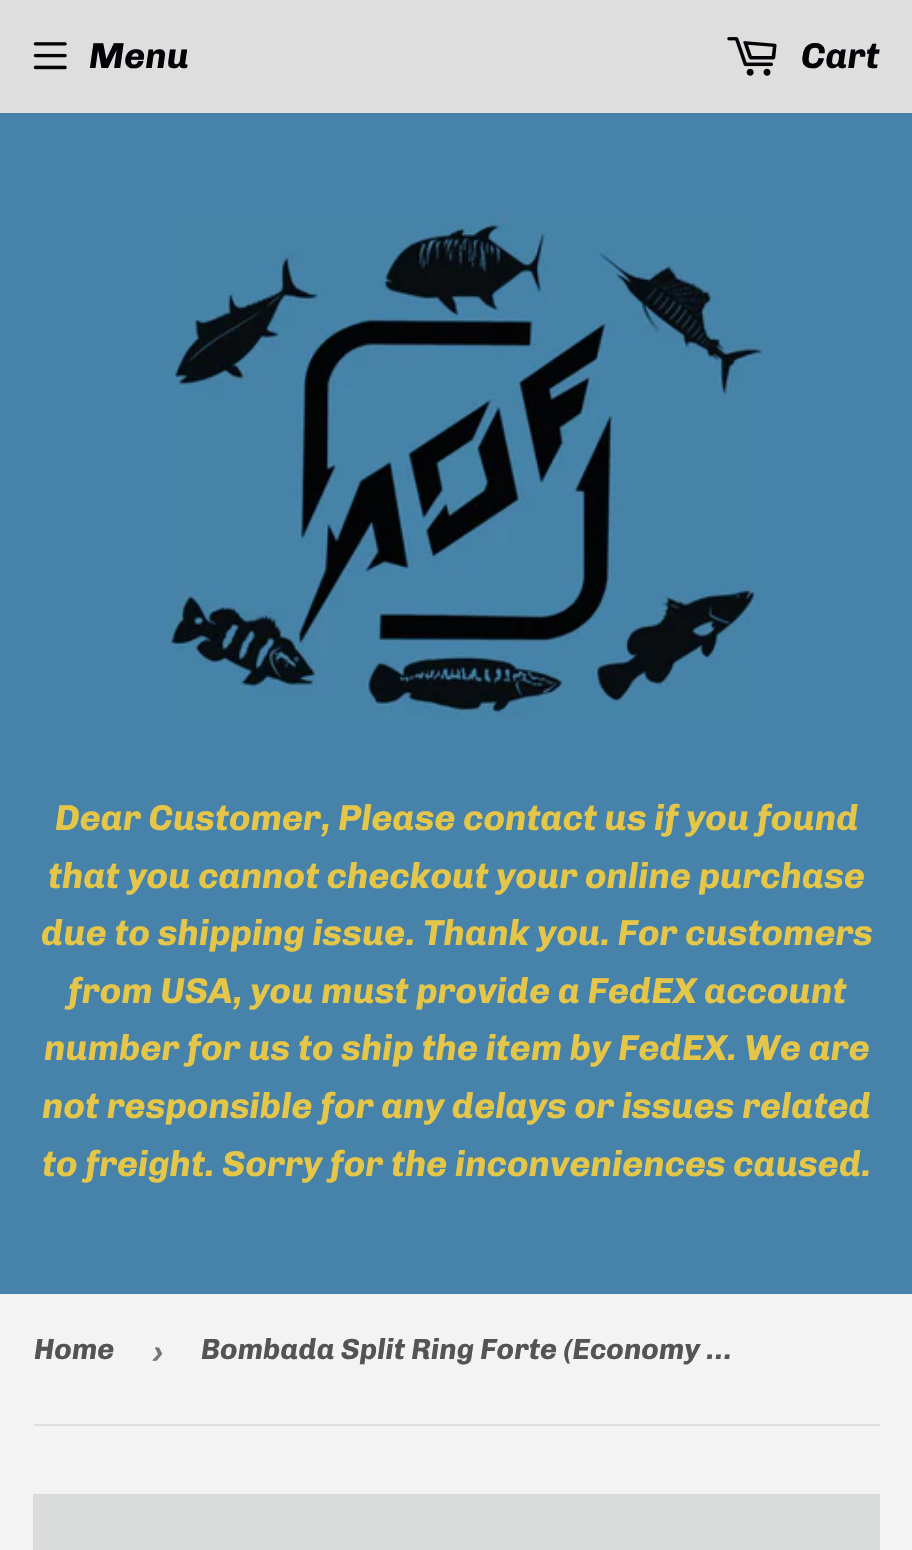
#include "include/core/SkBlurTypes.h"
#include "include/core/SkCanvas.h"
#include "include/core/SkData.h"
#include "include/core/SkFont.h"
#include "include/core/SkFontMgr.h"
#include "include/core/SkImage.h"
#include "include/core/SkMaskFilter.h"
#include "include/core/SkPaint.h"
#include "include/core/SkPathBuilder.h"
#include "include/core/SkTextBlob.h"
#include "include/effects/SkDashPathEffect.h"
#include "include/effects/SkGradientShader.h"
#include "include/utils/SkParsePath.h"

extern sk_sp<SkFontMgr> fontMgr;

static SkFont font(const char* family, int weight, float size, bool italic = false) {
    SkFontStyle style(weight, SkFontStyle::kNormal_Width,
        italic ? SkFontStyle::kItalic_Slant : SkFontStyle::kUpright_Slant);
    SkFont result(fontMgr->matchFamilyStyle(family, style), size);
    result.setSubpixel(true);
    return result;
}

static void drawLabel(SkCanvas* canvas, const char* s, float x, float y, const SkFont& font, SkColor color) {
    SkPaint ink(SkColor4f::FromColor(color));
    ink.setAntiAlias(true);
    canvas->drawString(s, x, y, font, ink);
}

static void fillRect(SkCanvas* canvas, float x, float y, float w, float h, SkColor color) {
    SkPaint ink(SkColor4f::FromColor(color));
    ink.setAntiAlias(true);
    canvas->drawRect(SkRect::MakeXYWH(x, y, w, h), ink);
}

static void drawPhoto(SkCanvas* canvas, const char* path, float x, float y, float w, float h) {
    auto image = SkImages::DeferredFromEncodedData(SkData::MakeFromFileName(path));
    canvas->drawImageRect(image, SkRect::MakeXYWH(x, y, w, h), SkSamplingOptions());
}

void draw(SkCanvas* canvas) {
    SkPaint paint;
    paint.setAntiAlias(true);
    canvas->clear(0xFFF3F3F3);
    fillRect(canvas, 0, 0, 912, 113, 0xFFDEDEDE);
    drawPhoto(canvas, "assets/img1.png", 33, 42, 34, 28);
    SkFont font1 = font("Chivo", 700, 36, true);
    drawLabel(canvas, "Menu", 89, 68, font1, 0xFF040408);
    drawPhoto(canvas, "assets/img2.png", 727, 37, 50, 39);
    drawLabel(canvas, "Cart", 801, 68, font1, 0xFF040408);
    fillRect(canvas, 0, 113, 912, 1181, 0xFF4682A9);
    drawPhoto(canvas, "assets/img3.png", 165, 214, 599, 507);
    drawLabel(canvas, "Dear Customer, Please contact us if you found", 55, 830, font1, 0xFFE5C649);
    drawLabel(canvas, "that you cannot checkout your online purchase", 48, 888, font1, 0xFFE5C649);
    drawLabel(canvas, "due to shipping issue. Thank you. For customers", 41, 945, font1, 0xFFE5C649);
    drawLabel(canvas, "from USA, you must provide a FedEX account", 68, 1003, font1, 0xFFE5C649);
    drawLabel(canvas, "number for us to ship the item by FedEX. We are", 44, 1060, font1, 0xFFE5C649);
    drawLabel(canvas, "not responsible for any delays or issues related", 42, 1118, font1, 0xFFE5C649);
    drawLabel(canvas, "to freight. Sorry for the inconveniences caused.", 42, 1176, font1, 0xFFE5C649);
    fillRect(canvas, 34, 1424, 846, 2, 0xFFDEDEDE);
    SkFont font2 = font("Chivo", 700, 29.25f, true);
    drawLabel(canvas, "Home", 34, 1359, font2, 0xFF545454);
    SkFont font3 = font("Liberation Sans", 700, 34, true);
    drawLabel(canvas, "›", 152, 1363, font3, 0xFF767676);
    drawLabel(canvas, "Bombada Split Ring Forte (Economy …", 201, 1359, font2, 0xFF545454);
    fillRect(canvas, 33, 1494, 847, 56, 0xFFD9DCDB);
}
